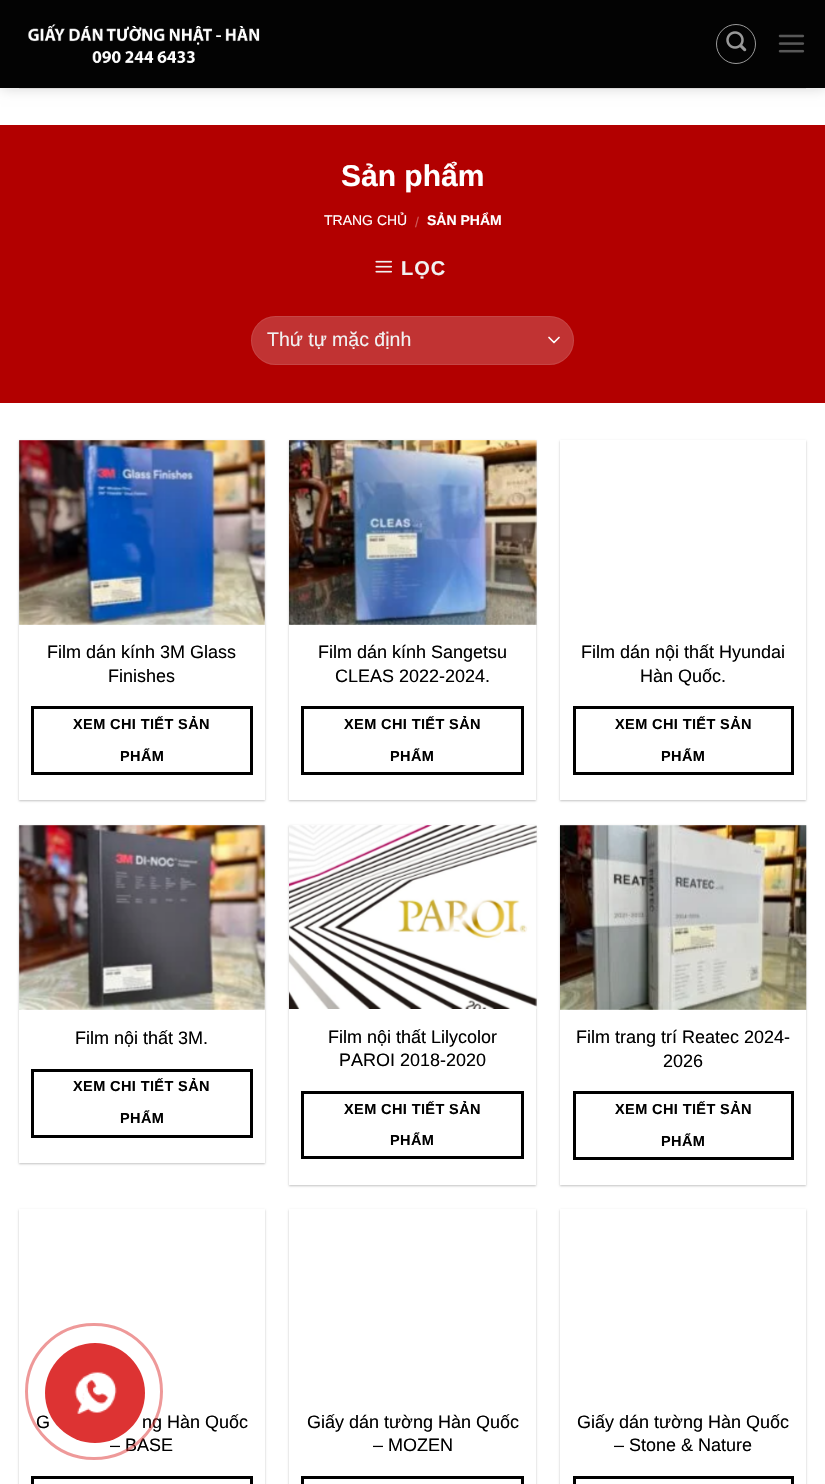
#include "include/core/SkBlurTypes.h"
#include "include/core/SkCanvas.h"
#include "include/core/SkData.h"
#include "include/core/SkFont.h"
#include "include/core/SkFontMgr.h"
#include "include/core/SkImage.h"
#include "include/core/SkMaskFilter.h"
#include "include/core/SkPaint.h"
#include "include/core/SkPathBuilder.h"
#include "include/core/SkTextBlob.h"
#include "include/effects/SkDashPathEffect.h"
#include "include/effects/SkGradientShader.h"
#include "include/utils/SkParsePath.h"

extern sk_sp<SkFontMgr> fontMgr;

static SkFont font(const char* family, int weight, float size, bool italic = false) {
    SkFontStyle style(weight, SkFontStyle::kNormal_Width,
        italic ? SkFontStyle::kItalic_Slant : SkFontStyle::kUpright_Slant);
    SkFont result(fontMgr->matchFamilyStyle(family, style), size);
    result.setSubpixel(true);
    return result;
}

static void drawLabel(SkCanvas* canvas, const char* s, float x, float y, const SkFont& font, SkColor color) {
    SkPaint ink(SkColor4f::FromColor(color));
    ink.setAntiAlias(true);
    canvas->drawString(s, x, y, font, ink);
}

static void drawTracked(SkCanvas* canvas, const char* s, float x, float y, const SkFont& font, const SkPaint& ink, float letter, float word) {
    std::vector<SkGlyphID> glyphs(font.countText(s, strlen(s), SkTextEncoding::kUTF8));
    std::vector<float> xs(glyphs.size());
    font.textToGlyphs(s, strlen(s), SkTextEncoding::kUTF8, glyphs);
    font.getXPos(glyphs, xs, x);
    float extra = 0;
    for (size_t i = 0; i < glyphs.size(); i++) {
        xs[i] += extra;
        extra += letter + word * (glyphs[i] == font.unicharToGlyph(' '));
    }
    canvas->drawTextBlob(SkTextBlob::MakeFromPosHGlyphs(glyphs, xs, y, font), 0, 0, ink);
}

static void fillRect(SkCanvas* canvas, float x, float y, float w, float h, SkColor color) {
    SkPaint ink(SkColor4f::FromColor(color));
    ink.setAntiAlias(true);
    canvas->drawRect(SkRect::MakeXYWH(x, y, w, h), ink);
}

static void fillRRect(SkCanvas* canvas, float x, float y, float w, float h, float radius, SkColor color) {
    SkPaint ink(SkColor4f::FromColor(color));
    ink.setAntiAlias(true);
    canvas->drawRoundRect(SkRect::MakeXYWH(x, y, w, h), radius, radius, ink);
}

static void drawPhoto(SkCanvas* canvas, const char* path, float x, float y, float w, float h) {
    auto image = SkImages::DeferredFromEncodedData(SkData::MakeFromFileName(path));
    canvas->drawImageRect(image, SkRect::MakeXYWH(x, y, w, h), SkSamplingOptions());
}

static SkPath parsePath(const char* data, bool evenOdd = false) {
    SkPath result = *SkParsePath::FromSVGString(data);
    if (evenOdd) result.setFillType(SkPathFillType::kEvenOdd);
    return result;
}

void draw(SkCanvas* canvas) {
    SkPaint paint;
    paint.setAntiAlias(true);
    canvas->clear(0xFFFFFFFF);
    paint.setColor(0x26000000);
    paint.setMaskFilter(SkMaskFilter::MakeBlur(kNormal_SkBlurStyle, 6));
    canvas->drawRect(SkRect::MakeXYWH(1, 1, 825, 88), paint);
    paint.setMaskFilter(nullptr);
    fillRect(canvas, 0, 0, 825, 88, 0xFF030303);
    drawPhoto(canvas, "assets/img1.png", 28, 24, 232, 40);
    paint.setStroke(true);
    paint.setStrokeWidth(1);
    paint.setColor(0xFF999999);
    canvas->drawCircle(736, 44, 19.5f, paint);
    drawPhoto(canvas, "assets/img2.png", 726, 31, 21, 21);
    drawPhoto(canvas, "assets/img3.png", 778, 34, 27, 19);
    fillRect(canvas, 19, 88, 787, 1, 0xFFD9D8D8);
    fillRect(canvas, 0, 125, 825, 278, 0xFFB20000);
    SkFont font1 = font("Liberation Sans", 700, 30);
    drawLabel(canvas, "Sản phẩm", 341, 186, font1, 0xFFFFFFFF);
    SkFont font2 = font("Liberation Sans", 400, 14);
    drawLabel(canvas, "TRANG CHỦ", 324, 225, font2, 0xFFFFFFFF);
    drawLabel(canvas, "/", 415, 227, font2, 0xFFCD5959);
    SkFont font3 = font("Liberation Sans", 700, 14);
    drawLabel(canvas, "SẢN PHẨM", 427, 225, font3, 0xFFFFFFFF);
    drawPhoto(canvas, "assets/img4.png", 375, 260, 17, 13);
    SkFont font4 = font("Liberation Sans", 700, 20);
    paint.setStroke(false);
    paint.setColor(0xFFF1F1F1);
    drawTracked(canvas, "LỌC", 401, 275, font4, paint, 1, 0);
    fillRRect(canvas, 251, 316, 323, 49, 24.5f, 0xFFC13333);
    paint.setStroke(true);
    paint.setStrokeWidth(1.7f);
    paint.setStrokeCap(SkPaint::kRound_Cap);
    paint.setStrokeJoin(SkPaint::kRound_Join);
    paint.setColor(0xFFFFFFFF);
    canvas->drawPath(parsePath("M549 337.5L554 342.5L559 337.5"), paint);
    paint.setStrokeWidth(1);
    paint.setStrokeCap(SkPaint::kButt_Cap);
    paint.setStrokeJoin(SkPaint::kMiter_Join);
    paint.setColor(0x17FFFFFF);
    canvas->drawRoundRect(SkRect::MakeXYWH(251.5f, 316.5f, 322, 48), 24, 24, paint);
    SkFont font5 = font("Liberation Sans", 400, 19.5f);
    drawLabel(canvas, "Thứ tự mặc định", 267, 346, font5, 0xFFF1F1F1);
    canvas->save();
    canvas->clipPath(parsePath("M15 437H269V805H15ZM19 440H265V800H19Z", true), true);
    paint.setStroke(false);
    paint.setColor(0x3D000000);
    paint.setMaskFilter(SkMaskFilter::MakeBlur(kNormal_SkBlurStyle, 1));
    canvas->drawRect(SkRect::MakeXYWH(19, 441, 246, 360), paint);
    paint.setMaskFilter(nullptr);
    canvas->restore();
    drawPhoto(canvas, "assets/img5.png", 19, 440, 246, 185);
    SkFont font6 = font("Liberation Sans", 400, 18);
    drawLabel(canvas, "Film dán kính 3M Glass", 47, 658, font6, 0xFF000000);
    drawLabel(canvas, "Finishes", 108, 682, font6, 0xFF000000);
    paint.setStroke(true);
    paint.setStrokeWidth(3);
    paint.setColor(0xFF000000);
    canvas->drawRect(SkRect::MakeXYWH(32.5f, 707.5f, 219, 66), paint);
    SkFont font7 = font("Liberation Sans", 700, 14.5f);
    paint.setStroke(false);
    drawTracked(canvas, "XEM CHI TIẾT SẢN", 73, 729, font7, paint, 0.4f, 0);
    drawTracked(canvas, "PHẨM", 120, 761, font7, paint, 0.4f, 0);
    canvas->save();
    canvas->clipPath(parsePath("M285 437H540V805H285ZM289 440H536V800H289Z", true), true);
    paint.setColor(0x3D000000);
    paint.setMaskFilter(SkMaskFilter::MakeBlur(kNormal_SkBlurStyle, 1));
    canvas->drawRect(SkRect::MakeXYWH(289, 441, 247, 360), paint);
    paint.setMaskFilter(nullptr);
    canvas->restore();
    drawPhoto(canvas, "assets/img6.png", 289, 440, 248, 185);
    drawLabel(canvas, "Film dán kính Sangetsu", 318, 658, font6, 0xFF000000);
    drawLabel(canvas, "CLEAS 2022-2024.", 335, 682, font6, 0xFF000000);
    paint.setStroke(true);
    paint.setColor(0xFF000000);
    canvas->drawRect(SkRect::MakeXYWH(302.5f, 707.5f, 220, 66), paint);
    paint.setStroke(false);
    drawTracked(canvas, "XEM CHI TIẾT SẢN", 344, 729, font7, paint, 0.4f, 0);
    drawTracked(canvas, "PHẨM", 390, 761, font7, paint, 0.4f, 0);
    canvas->save();
    canvas->clipPath(parsePath("M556 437H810V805H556ZM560 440H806V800H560Z", true), true);
    paint.setColor(0x3D000000);
    paint.setMaskFilter(SkMaskFilter::MakeBlur(kNormal_SkBlurStyle, 1));
    canvas->drawRect(SkRect::MakeXYWH(560, 441, 246, 360), paint);
    paint.setMaskFilter(nullptr);
    canvas->restore();
    drawLabel(canvas, "Film dán nội thất Hyundai", 581, 658, font6, 0xFF000000);
    drawLabel(canvas, "Hàn Quốc.", 640, 682, font6, 0xFF000000);
    paint.setStroke(true);
    paint.setColor(0xFF000000);
    canvas->drawRect(SkRect::MakeXYWH(574.5f, 707.5f, 218, 66), paint);
    paint.setStroke(false);
    drawTracked(canvas, "XEM CHI TIẾT SẢN", 615, 729, font7, paint, 0.4f, 0);
    drawTracked(canvas, "PHẨM", 661, 761, font7, paint, 0.4f, 0);
    paint.setColor(0x3D000000);
    paint.setMaskFilter(SkMaskFilter::MakeBlur(kNormal_SkBlurStyle, 1));
    canvas->drawRect(SkRect::MakeXYWH(19, 826, 246, 338), paint);
    paint.setMaskFilter(nullptr);
    fillRect(canvas, 19, 825, 246, 338, 0xFFFFFFFF);
    drawPhoto(canvas, "assets/img7.png", 19, 825, 246, 185);
    drawLabel(canvas, "Film nội thất 3M.", 75, 1044, font6, 0xFF000000);
    paint.setStroke(true);
    paint.setColor(0xFF000000);
    canvas->drawRect(SkRect::MakeXYWH(32.5f, 1070.5f, 219, 66), paint);
    paint.setStroke(false);
    drawTracked(canvas, "XEM CHI TIẾT SẢN", 73, 1091, font7, paint, 0.4f, 0);
    drawTracked(canvas, "PHẨM", 120, 1123, font7, paint, 0.4f, 0);
    canvas->save();
    canvas->clipPath(parsePath("M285 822H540V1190H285ZM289 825H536V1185H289Z", true), true);
    paint.setColor(0x3D000000);
    paint.setMaskFilter(SkMaskFilter::MakeBlur(kNormal_SkBlurStyle, 1));
    canvas->drawRect(SkRect::MakeXYWH(289, 826, 247, 360), paint);
    paint.setMaskFilter(nullptr);
    canvas->restore();
    drawPhoto(canvas, "assets/img8.png", 289, 825, 248, 184);
    drawLabel(canvas, "Film nội thất Lilycolor", 328, 1043, font6, 0xFF000000);
    drawLabel(canvas, "PAROI 2018-2020", 339, 1066, font6, 0xFF000000);
    paint.setStroke(true);
    paint.setColor(0xFF000000);
    canvas->drawRect(SkRect::MakeXYWH(302.5f, 1092.5f, 220, 65), paint);
    paint.setStroke(false);
    drawTracked(canvas, "XEM CHI TIẾT SẢN", 344, 1114, font7, paint, 0.4f, 0);
    drawTracked(canvas, "PHẨM", 390, 1145, font7, paint, 0.4f, 0);
    canvas->save();
    canvas->clipPath(parsePath("M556 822H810V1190H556ZM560 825H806V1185H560Z", true), true);
    paint.setColor(0x3D000000);
    paint.setMaskFilter(SkMaskFilter::MakeBlur(kNormal_SkBlurStyle, 1));
    canvas->drawRect(SkRect::MakeXYWH(560, 826, 246, 360), paint);
    paint.setMaskFilter(nullptr);
    canvas->restore();
    drawPhoto(canvas, "assets/img9.png", 560, 825, 247, 185);
    drawLabel(canvas, "Film trang trí Reatec 2024-", 576, 1043, font6, 0xFF000000);
    drawLabel(canvas, "2026", 663, 1067, font6, 0xFF000000);
    paint.setStroke(true);
    paint.setColor(0xFF000000);
    canvas->drawRect(SkRect::MakeXYWH(574.5f, 1092.5f, 218, 66), paint);
    paint.setStroke(false);
    drawTracked(canvas, "XEM CHI TIẾT SẢN", 615, 1114, font7, paint, 0.4f, 0);
    drawTracked(canvas, "PHẨM", 661, 1146, font7, paint, 0.4f, 0);
    canvas->save();
    canvas->clipPath(parsePath("M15 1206H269V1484H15ZM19 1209H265V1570H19Z", true), true);
    paint.setColor(0x3D000000);
    paint.setMaskFilter(SkMaskFilter::MakeBlur(kNormal_SkBlurStyle, 1));
    canvas->drawRect(SkRect::MakeXYWH(19, 1210, 246, 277), paint);
    paint.setMaskFilter(nullptr);
    canvas->restore();
    drawLabel(canvas, "G", 36, 1428, font6, 0xFF000000);
    drawLabel(canvas, "ng Hàn Quốc", 142, 1428, font6, 0xFF000000);
    drawLabel(canvas, "– BASE", 110, 1451, font6, 0xFF000000);
    paint.setStroke(true);
    paint.setColor(0xFF000000);
    canvas->drawRect(SkRect::MakeXYWH(32.5f, 1477.5f, 219, 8), paint);
    canvas->save();
    canvas->clipPath(parsePath("M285 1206H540V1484H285ZM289 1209H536V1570H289Z", true), true);
    paint.setStroke(false);
    paint.setColor(0x3D000000);
    paint.setMaskFilter(SkMaskFilter::MakeBlur(kNormal_SkBlurStyle, 1));
    canvas->drawRect(SkRect::MakeXYWH(289, 1210, 247, 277), paint);
    paint.setMaskFilter(nullptr);
    canvas->restore();
    drawLabel(canvas, "Giấy dán tường Hàn Quốc", 307, 1428, font6, 0xFF000000);
    drawLabel(canvas, "– MOZEN", 373, 1451, font6, 0xFF000000);
    paint.setStroke(true);
    paint.setColor(0xFF000000);
    canvas->drawRect(SkRect::MakeXYWH(302.5f, 1477.5f, 220, 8), paint);
    canvas->save();
    canvas->clipPath(parsePath("M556 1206H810V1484H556ZM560 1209H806V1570H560Z", true), true);
    paint.setStroke(false);
    paint.setColor(0x3D000000);
    paint.setMaskFilter(SkMaskFilter::MakeBlur(kNormal_SkBlurStyle, 1));
    canvas->drawRect(SkRect::MakeXYWH(560, 1210, 246, 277), paint);
    paint.setMaskFilter(nullptr);
    canvas->restore();
    drawLabel(canvas, "Giấy dán tường Hàn Quốc", 577, 1428, font6, 0xFF000000);
    drawLabel(canvas, "– Stone & Nature", 614, 1451, font6, 0xFF000000);
    paint.setStroke(true);
    paint.setColor(0xFF000000);
    canvas->drawRect(SkRect::MakeXYWH(574.5f, 1477.5f, 218, 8), paint);
    paint.setColor(0x80DD3333);
    canvas->drawRoundRect(SkRect::MakeXYWH(26.5f, 1324.5f, 135, 134), 67, 67, paint);
    paint.setStroke(false);
    paint.setColor(0xFFDD3333);
    canvas->drawCircle(95, 1393, 50, paint);
    drawPhoto(canvas, "assets/img10.png", 74, 1371, 43, 43);
}
